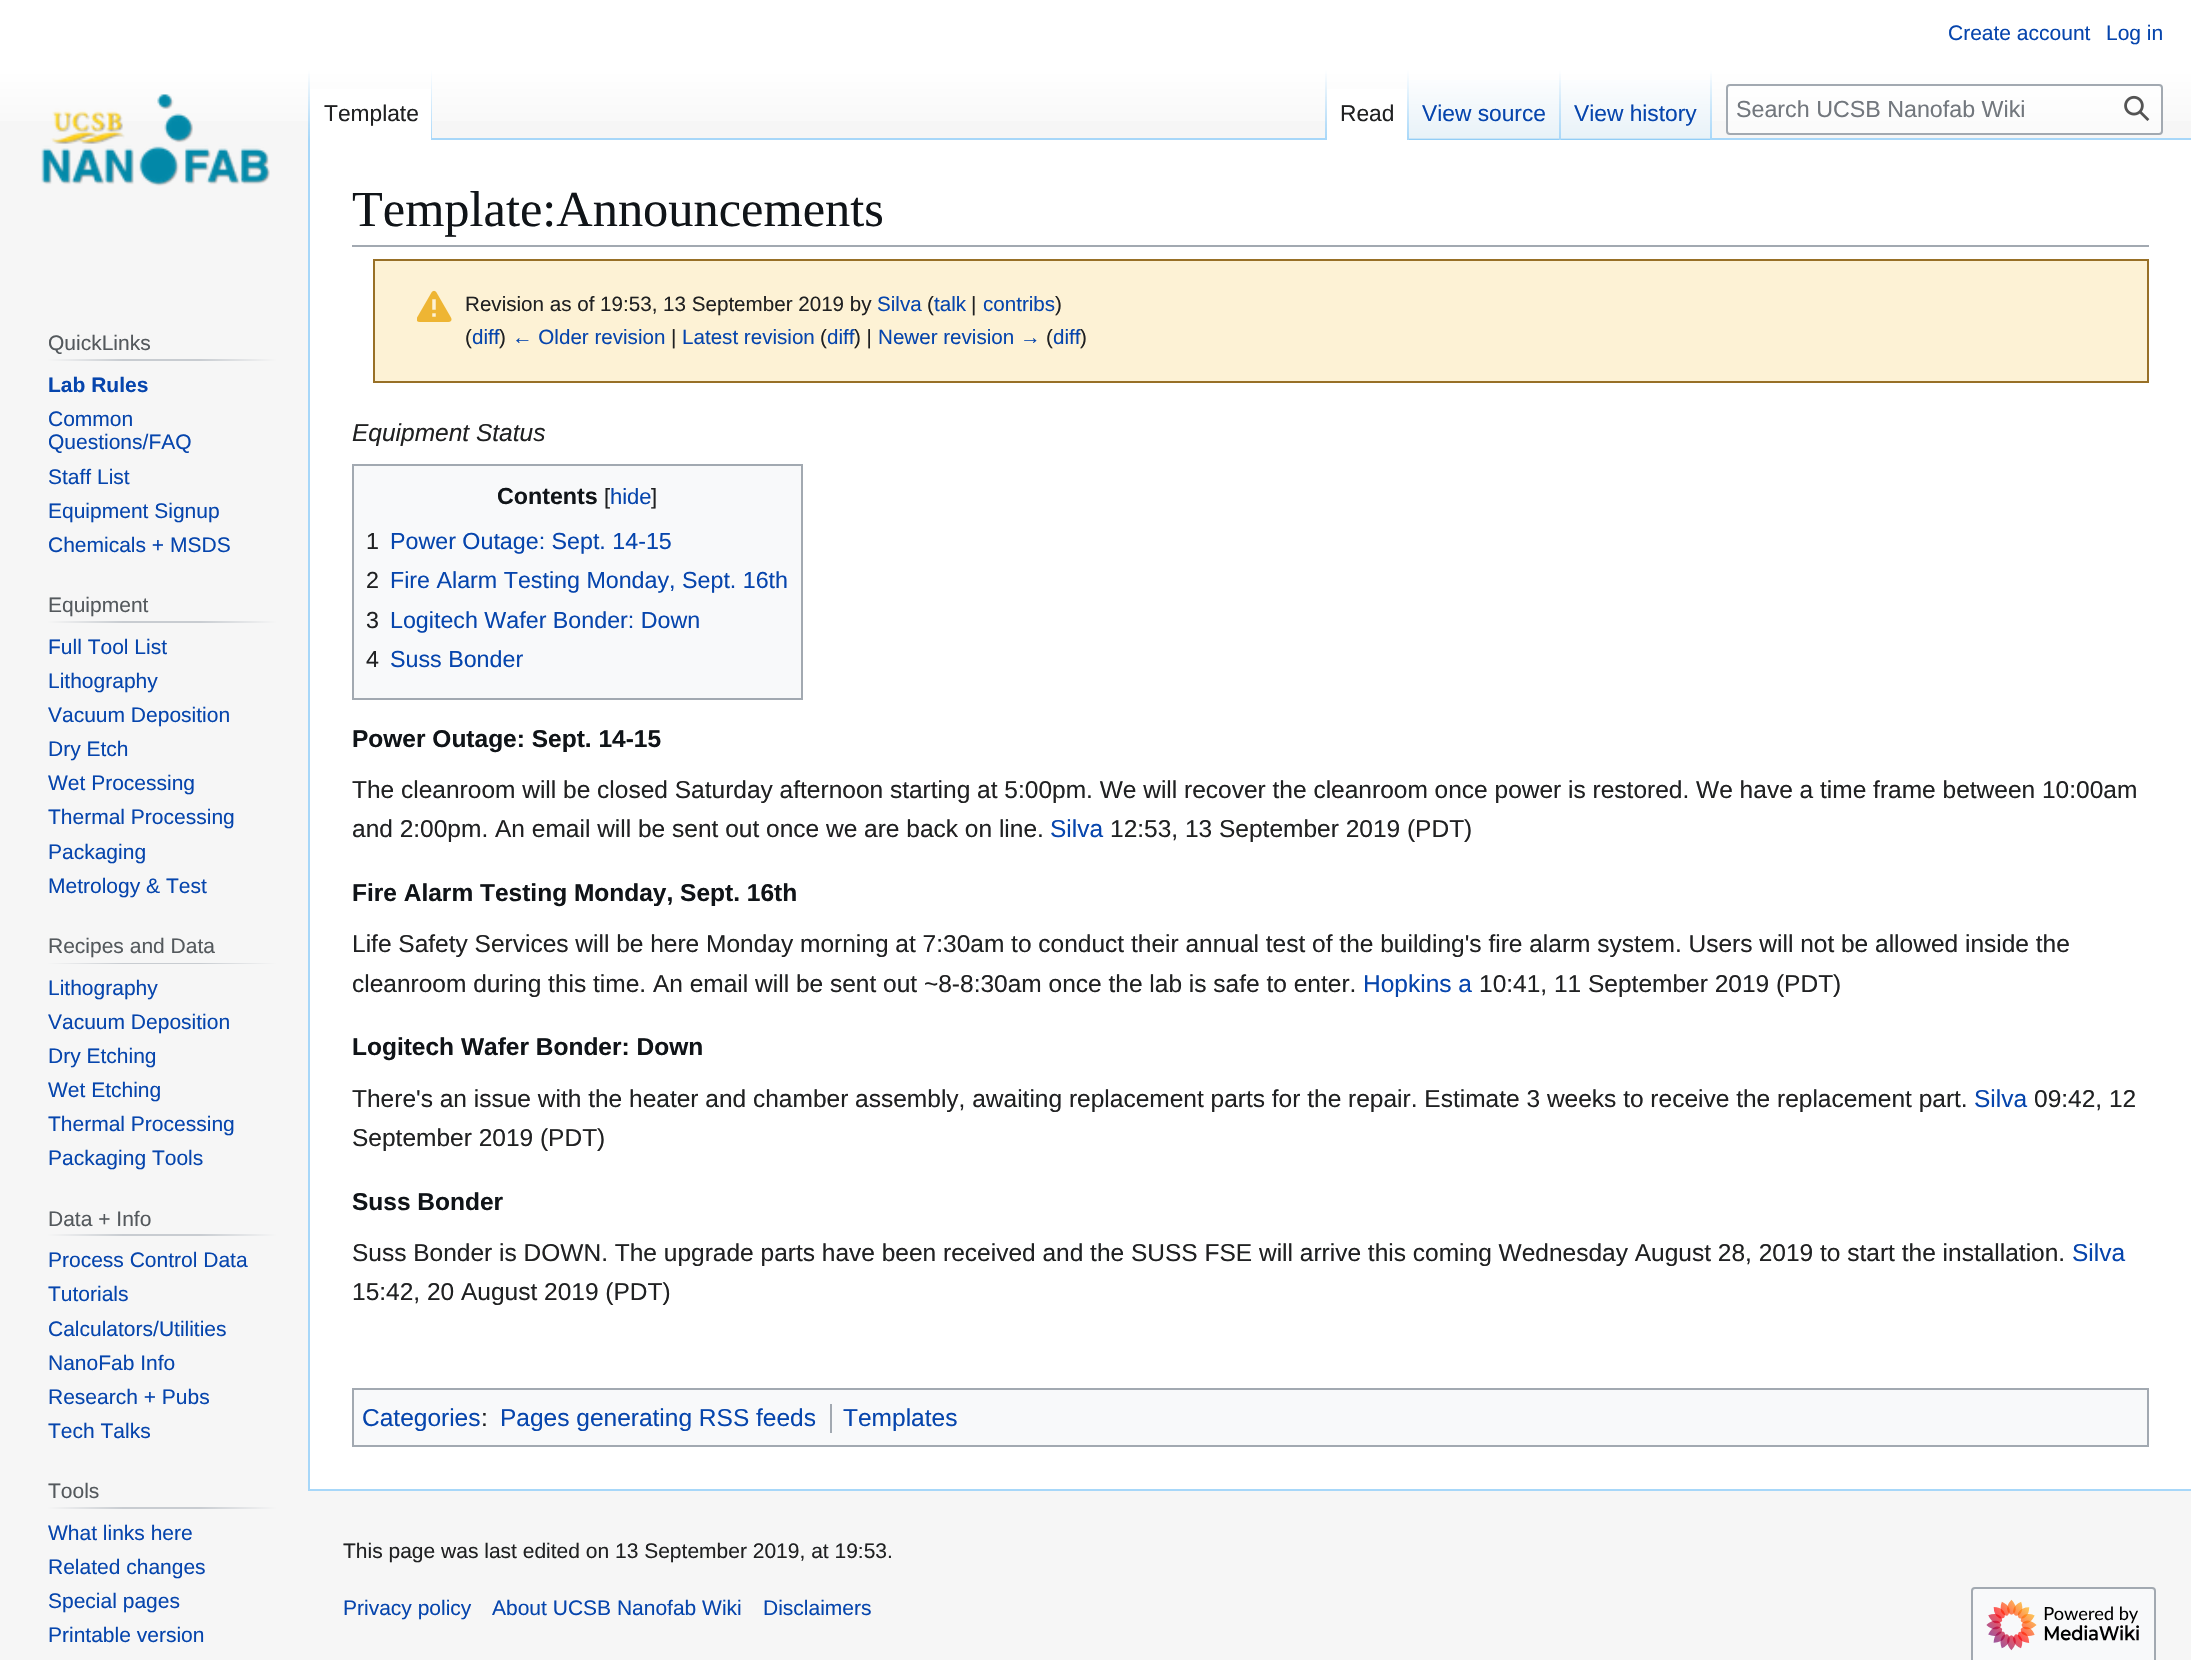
#include "include/core/SkBlurTypes.h"
#include "include/core/SkCanvas.h"
#include "include/core/SkData.h"
#include "include/core/SkFont.h"
#include "include/core/SkFontMgr.h"
#include "include/core/SkImage.h"
#include "include/core/SkMaskFilter.h"
#include "include/core/SkPaint.h"
#include "include/core/SkPathBuilder.h"
#include "include/core/SkTextBlob.h"
#include "include/effects/SkDashPathEffect.h"
#include "include/effects/SkGradientShader.h"
#include "include/utils/SkParsePath.h"

extern sk_sp<SkFontMgr> fontMgr;

static SkFont font(const char* family, int weight, float size, bool italic = false) {
    SkFontStyle style(weight, SkFontStyle::kNormal_Width,
        italic ? SkFontStyle::kItalic_Slant : SkFontStyle::kUpright_Slant);
    SkFont result(fontMgr->matchFamilyStyle(family, style), size);
    result.setSubpixel(true);
    return result;
}

static void drawLabel(SkCanvas* canvas, const char* s, float x, float y, const SkFont& font, SkColor color) {
    SkPaint ink(SkColor4f::FromColor(color));
    ink.setAntiAlias(true);
    canvas->drawString(s, x, y, font, ink);
}

static void fillRect(SkCanvas* canvas, float x, float y, float w, float h, SkColor color) {
    SkPaint ink(SkColor4f::FromColor(color));
    ink.setAntiAlias(true);
    canvas->drawRect(SkRect::MakeXYWH(x, y, w, h), ink);
}

static void drawPhoto(SkCanvas* canvas, const char* path, float x, float y, float w, float h) {
    auto image = SkImages::DeferredFromEncodedData(SkData::MakeFromFileName(path));
    canvas->drawImageRect(image, SkRect::MakeXYWH(x, y, w, h), SkSamplingOptions());
}

void draw(SkCanvas* canvas) {
    SkPaint paint;
    paint.setAntiAlias(true);
    canvas->clear(0xFFF6F6F6);
    {
        const SkColor colors[] = {0xFFFFFFFF, 0xFFF6F6F6};
        const float stops[] = {0.5f, 1};
        const SkPoint ends[] = {{1096, 0}, {1096, 140}};
        paint.setShader(SkGradientShader::MakeLinear(ends, colors, stops, 2, SkTileMode::kClamp));
        paint.setAlpha(255);
    }
    canvas->drawRect(SkRect::MakeXYWH(0, 0, 2191, 121), paint);
    SkFont font1 = font("Liberation Sans", 400, 21);
    drawLabel(canvas, "Create account", 1948, 40, font1, 0xFF0645AD);
    drawLabel(canvas, "Log in", 2106, 40, font1, 0xFF0645AD);
    fillRect(canvas, 308, 1489, 1883, 2, 0xFFA7D7F9);
    fillRect(canvas, 308, 138, 2, 1353, 0xFFA7D7F9);
    {
        const SkColor colors[] = {0x00A7D7F9, 0xFFA7D7F9};
        const float stops[] = {0, 1};
        const SkPoint ends[] = {{309, 70}, {309, 140}};
        paint.setShader(SkGradientShader::MakeLinear(ends, colors, stops, 2, SkTileMode::kClamp));
        paint.setAlpha(255);
    }
    canvas->drawRect(SkRect::MakeXYWH(308, 70, 2, 70), paint);
    fillRect(canvas, 310, 89, 121, 51, 0xFFFFFFFF);
    {
        const SkColor colors[] = {0xFFFFFFFF, 0xFFA7D7F9};
        const float stops[] = {0, 1};
        const SkPoint ends[] = {{431, 70}, {431, 140}};
        paint.setShader(SkGradientShader::MakeLinear(ends, colors, stops, 2, SkTileMode::kClamp));
        paint.setAlpha(255);
    }
    canvas->drawRect(SkRect::MakeXYWH(431, 70, 1, 70), paint);
    SkFont font2 = font("Liberation Sans", 400, 22.75f);
    drawLabel(canvas, "Template", 324, 121, font2, 0xFF202122);
    fillRect(canvas, 432, 138, 1759, 2, 0xFFA7D7F9);
    {
        const SkColor colors[] = {0x00A7D7F9, 0xFFA7D7F9};
        const float stops[] = {0, 1};
        const SkPoint ends[] = {{1326, 70}, {1326, 140}};
        paint.setShader(SkGradientShader::MakeLinear(ends, colors, stops, 2, SkTileMode::kClamp));
        paint.setAlpha(255);
    }
    canvas->drawRect(SkRect::MakeXYWH(1325, 70, 2, 70), paint);
    fillRect(canvas, 1327, 89, 80, 51, 0xFFFFFFFF);
    {
        const SkColor colors[] = {0xFFFFFFFF, 0xFFA7D7F9};
        const float stops[] = {0, 1};
        const SkPoint ends[] = {{1408, 70}, {1408, 140}};
        paint.setShader(SkGradientShader::MakeLinear(ends, colors, stops, 2, SkTileMode::kClamp));
        paint.setAlpha(255);
    }
    canvas->drawRect(SkRect::MakeXYWH(1407, 70, 2, 70), paint);
    drawLabel(canvas, "Read", 1340, 121, font2, 0xFF202122);
    {
        const SkColor colors[] = {0xFF77C1F6, 0xFFE8F2F8, 0xFFFFFFFF};
        const float stops[] = {0, 0.03f, 1};
        const SkPoint ends[] = {{1485, 140}, {1485, 70}};
        paint.setShader(SkGradientShader::MakeLinear(ends, colors, stops, 3, SkTileMode::kClamp));
        paint.setAlpha(255);
    }
    canvas->drawRect(SkRect::MakeXYWH(1409, 80, 152, 60), paint);
    {
        const SkColor colors[] = {0x00A7D7F9, 0xFFA7D7F9};
        const float stops[] = {0, 1};
        const SkPoint ends[] = {{1560, 70}, {1560, 140}};
        paint.setShader(SkGradientShader::MakeLinear(ends, colors, stops, 2, SkTileMode::kClamp));
        paint.setAlpha(255);
    }
    canvas->drawRect(SkRect::MakeXYWH(1559, 70, 2, 70), paint);
    drawLabel(canvas, "View source", 1422, 121, font2, 0xFF0645AD);
    {
        const SkColor colors[] = {0xFF77C1F6, 0xFFE8F2F8, 0xFFFFFFFF};
        const float stops[] = {0, 0.03f, 1};
        const SkPoint ends[] = {{1636, 140}, {1636, 70}};
        paint.setShader(SkGradientShader::MakeLinear(ends, colors, stops, 3, SkTileMode::kClamp));
        paint.setAlpha(255);
    }
    canvas->drawRect(SkRect::MakeXYWH(1561, 80, 151, 60), paint);
    {
        const SkColor colors[] = {0x00A7D7F9, 0xFFA7D7F9};
        const float stops[] = {0, 1};
        const SkPoint ends[] = {{1711, 70}, {1711, 140}};
        paint.setShader(SkGradientShader::MakeLinear(ends, colors, stops, 2, SkTileMode::kClamp));
        paint.setAlpha(255);
    }
    canvas->drawRect(SkRect::MakeXYWH(1710, 70, 2, 70), paint);
    drawLabel(canvas, "View history", 1574, 121, font2, 0xFF0645AD);
    paint.setShader(nullptr);
    paint.setColor(0x80FFFFFF);
    canvas->drawRoundRect(SkRect::MakeXYWH(1727, 85, 435, 49), 3, 3, paint);
    paint.setStroke(true);
    paint.setStrokeWidth(2);
    paint.setColor(0xFFA2A9B1);
    canvas->drawRoundRect(SkRect::MakeXYWH(1727, 85, 435, 49), 3, 3, paint);
    SkFont font3 = font("Liberation Sans", 400, 23.25f);
    drawLabel(canvas, "Search UCSB Nanofab Wiki", 1736, 117, font3, 0xFF72777D);
    drawPhoto(canvas, "assets/img1.png", 2124, 95, 26, 26);
    drawPhoto(canvas, "assets/img2.png", 41, 94, 229, 92);
    paint.setStroke(false);
    {
        const SkColor colors[] = {0xFFF6F6F6, 0xFFC8CCD1, 0xFFC8CCD1, 0xFFF6F6F6};
        const float stops[] = {0, 0.33f, 0.66f, 1};
        const SkPoint ends[] = {{47, 360}, {277, 360}};
        paint.setShader(SkGradientShader::MakeLinear(ends, colors, stops, 4, SkTileMode::kClamp));
        paint.setAlpha(255);
    }
    canvas->drawRect(SkRect::MakeXYWH(47, 359, 230, 2), paint);
    drawLabel(canvas, "QuickLinks", 48, 350, font1, 0xFF54595D);
    SkFont font4 = font("Liberation Sans", 700, 21);
    drawLabel(canvas, "Lab Rules", 48, 392, font4, 0xFF0645AD);
    drawLabel(canvas, "Common", 48, 426, font1, 0xFF0645AD);
    drawLabel(canvas, "Questions/FAQ", 48, 449, font1, 0xFF0645AD);
    drawLabel(canvas, "Staff List", 48, 484, font1, 0xFF0645AD);
    drawLabel(canvas, "Equipment Signup", 48, 518, font1, 0xFF0645AD);
    drawLabel(canvas, "Chemicals + MSDS", 48, 552, font1, 0xFF0645AD);
    {
        const SkColor colors[] = {0xFFF6F6F6, 0xFFC8CCD1, 0xFFC8CCD1, 0xFFF6F6F6};
        const float stops[] = {0, 0.33f, 0.66f, 1};
        const SkPoint ends[] = {{47, 622}, {277, 622}};
        paint.setShader(SkGradientShader::MakeLinear(ends, colors, stops, 4, SkTileMode::kClamp));
        paint.setAlpha(255);
    }
    canvas->drawRect(SkRect::MakeXYWH(47, 621, 230, 2), paint);
    drawLabel(canvas, "Equipment", 48, 612, font1, 0xFF54595D);
    drawLabel(canvas, "Full Tool List", 48, 654, font1, 0xFF0645AD);
    drawLabel(canvas, "Lithography", 48, 688, font1, 0xFF0645AD);
    drawLabel(canvas, "Vacuum Deposition", 48, 722, font1, 0xFF0645AD);
    drawLabel(canvas, "Dry Etch", 48, 756, font1, 0xFF0645AD);
    drawLabel(canvas, "Wet Processing", 48, 790, font1, 0xFF0645AD);
    drawLabel(canvas, "Thermal Processing", 48, 824, font1, 0xFF0645AD);
    drawLabel(canvas, "Packaging", 48, 859, font1, 0xFF0645AD);
    drawLabel(canvas, "Metrology & Test", 48, 893, font1, 0xFF0645AD);
    {
        const SkColor colors[] = {0xFFF6F6F6, 0xFFC8CCD1, 0xFFC8CCD1, 0xFFF6F6F6};
        const float stops[] = {0, 0.33f, 0.66f, 1};
        const SkPoint ends[] = {{47, 963}, {277, 963}};
        paint.setShader(SkGradientShader::MakeLinear(ends, colors, stops, 4, SkTileMode::kClamp));
        paint.setAlpha(255);
    }
    canvas->drawRect(SkRect::MakeXYWH(47, 963, 230, 1), paint);
    drawLabel(canvas, "Recipes and Data", 48, 953, font1, 0xFF54595D);
    drawLabel(canvas, "Lithography", 48, 995, font1, 0xFF0645AD);
    drawLabel(canvas, "Vacuum Deposition", 48, 1029, font1, 0xFF0645AD);
    drawLabel(canvas, "Dry Etching", 48, 1063, font1, 0xFF0645AD);
    drawLabel(canvas, "Wet Etching", 48, 1097, font1, 0xFF0645AD);
    drawLabel(canvas, "Thermal Processing", 48, 1131, font1, 0xFF0645AD);
    drawLabel(canvas, "Packaging Tools", 48, 1165, font1, 0xFF0645AD);
    {
        const SkColor colors[] = {0xFFF6F6F6, 0xFFC8CCD1, 0xFFC8CCD1, 0xFFF6F6F6};
        const float stops[] = {0, 0.33f, 0.66f, 1};
        const SkPoint ends[] = {{47, 1235}, {277, 1235}};
        paint.setShader(SkGradientShader::MakeLinear(ends, colors, stops, 4, SkTileMode::kClamp));
        paint.setAlpha(255);
    }
    canvas->drawRect(SkRect::MakeXYWH(47, 1234, 230, 2), paint);
    drawLabel(canvas, "Data + Info", 48, 1226, font1, 0xFF54595D);
    drawLabel(canvas, "Process Control Data", 48, 1267, font1, 0xFF0645AD);
    drawLabel(canvas, "Tutorials", 48, 1301, font1, 0xFF0645AD);
    drawLabel(canvas, "Calculators/Utilities", 48, 1336, font1, 0xFF0645AD);
    drawLabel(canvas, "NanoFab Info", 48, 1370, font1, 0xFF0645AD);
    drawLabel(canvas, "Research + Pubs", 48, 1404, font1, 0xFF0645AD);
    drawLabel(canvas, "Tech Talks", 48, 1438, font1, 0xFF0645AD);
    {
        const SkColor colors[] = {0xFFF6F6F6, 0xFFC8CCD1, 0xFFC8CCD1, 0xFFF6F6F6};
        const float stops[] = {0, 0.33f, 0.66f, 1};
        const SkPoint ends[] = {{47, 1508}, {277, 1508}};
        paint.setShader(SkGradientShader::MakeLinear(ends, colors, stops, 4, SkTileMode::kClamp));
        paint.setAlpha(255);
    }
    canvas->drawRect(SkRect::MakeXYWH(47, 1507, 230, 2), paint);
    drawLabel(canvas, "Tools", 48, 1498, font1, 0xFF54595D);
    drawLabel(canvas, "What links here", 48, 1540, font1, 0xFF0645AD);
    drawLabel(canvas, "Related changes", 48, 1574, font1, 0xFF0645AD);
    drawLabel(canvas, "Special pages", 48, 1608, font1, 0xFF0645AD);
    drawLabel(canvas, "Printable version", 48, 1642, font1, 0xFF0645AD);
    fillRect(canvas, 310, 140, 1881, 1349, 0xFFFFFFFF);
    fillRect(canvas, 352, 245, 1797, 2, 0xFFA2A9B1);
    SkFont font5 = font("Liberation Serif", 400, 50.4f);
    drawLabel(canvas, "Template:Announcements", 352, 226, font5, 0xFF101418);
    paint.setShader(nullptr);
    paint.setColor(0xFFFDF2D5);
    canvas->drawRect(SkRect::MakeXYWH(374, 260, 1774, 122), paint);
    paint.setStroke(true);
    paint.setColor(0xFF987027);
    canvas->drawRect(SkRect::MakeXYWH(374, 260, 1774, 122), paint);
    drawPhoto(canvas, "assets/img3.png", 417, 290, 35, 32);
    SkFont font6 = font("Liberation Sans", 400, 20.6f);
    drawLabel(canvas, "Revision as of 19:53, 13 September 2019 by", 465, 311, font6, 0xFF202122);
    drawLabel(canvas, "Silva", 877, 311, font6, 0xFF0645AD);
    drawLabel(canvas, "(", 927, 311, font6, 0xFF202122);
    drawLabel(canvas, "talk", 934, 311, font6, 0xFF0645AD);
    drawLabel(canvas, "|", 971, 311, font6, 0xFF202122);
    drawLabel(canvas, "contribs", 983, 311, font6, 0xFF0645AD);
    drawLabel(canvas, ")", 1055, 311, font6, 0xFF202122);
    drawLabel(canvas, "(", 465, 344, font6, 0xFF202122);
    drawLabel(canvas, "diff", 472, 344, font6, 0xFF0645AD);
    drawLabel(canvas, ")", 499, 344, font6, 0xFF202122);
    drawLabel(canvas, "← Older revision", 512, 344, font6, 0xFF0645AD);
    drawLabel(canvas, "|", 671, 344, font6, 0xFF202122);
    drawLabel(canvas, "Latest revision", 682, 344, font6, 0xFF0645AD);
    drawLabel(canvas, "(", 820, 344, font6, 0xFF202122);
    drawLabel(canvas, "diff", 827, 344, font6, 0xFF0645AD);
    drawLabel(canvas, ") |", 854, 344, font6, 0xFF202122);
    drawLabel(canvas, "Newer revision →", 878, 344, font6, 0xFF0645AD);
    drawLabel(canvas, "(", 1046, 344, font6, 0xFF202122);
    drawLabel(canvas, "diff", 1053, 344, font6, 0xFF0645AD);
    drawLabel(canvas, ")", 1080, 344, font6, 0xFF202122);
    SkFont font7 = font("Liberation Sans", 400, 24.5f, true);
    drawLabel(canvas, "Equipment Status", 352, 441, font7, 0xFF202122);
    paint.setStroke(false);
    paint.setColor(0xFFF8F9FA);
    canvas->drawRect(SkRect::MakeXYWH(353, 465, 449, 234), paint);
    paint.setStroke(true);
    paint.setColor(0xFFA2A9B1);
    canvas->drawRect(SkRect::MakeXYWH(353, 465, 449, 234), paint);
    SkFont font8 = font("Liberation Sans", 700, 23.25f);
    drawLabel(canvas, "Contents", 497, 504, font8, 0xFF101418);
    SkFont font9 = font("Liberation Sans", 400, 22);
    drawLabel(canvas, "[", 604, 504, font9, 0xFF202122);
    drawLabel(canvas, "hide", 610, 504, font9, 0xFF0645AD);
    drawLabel(canvas, "]", 651, 504, font9, 0xFF202122);
    drawLabel(canvas, "1", 366, 549, font3, 0xFF202122);
    drawLabel(canvas, "Power Outage: Sept. 14-15", 390, 549, font3, 0xFF0645AD);
    drawLabel(canvas, "2", 366, 588, font3, 0xFF202122);
    drawLabel(canvas, "Fire Alarm Testing Monday, Sept. 16th", 390, 588, font3, 0xFF0645AD);
    drawLabel(canvas, "3", 366, 628, font3, 0xFF202122);
    drawLabel(canvas, "Logitech Wafer Bonder: Down", 390, 628, font3, 0xFF0645AD);
    drawLabel(canvas, "4", 366, 667, font3, 0xFF202122);
    drawLabel(canvas, "Suss Bonder", 390, 667, font3, 0xFF0645AD);
    SkFont font10 = font("Liberation Sans", 700, 24.5f);
    drawLabel(canvas, "Power Outage: Sept. 14-15", 352, 747, font10, 0xFF101418);
    SkFont font11 = font("Liberation Sans", 400, 24.5f);
    drawLabel(canvas, "The cleanroom will be closed Saturday afternoon starting at 5:00pm. We will recover the cleanroom once power is restored. We have a time frame between 10:00am", 352, 798, font11, 0xFF202122);
    drawLabel(canvas, "and 2:00pm. An email will be sent out once we are back on line.", 352, 837, font11, 0xFF202122);
    drawLabel(canvas, "Silva", 1050, 837, font11, 0xFF0645AD);
    drawLabel(canvas, "12:53, 13 September 2019 (PDT)", 1110, 837, font11, 0xFF202122);
    drawLabel(canvas, "Fire Alarm Testing Monday, Sept. 16th", 352, 901, font10, 0xFF101418);
    drawLabel(canvas, "Life Safety Services will be here Monday morning at 7:30am to conduct their annual test of the building's fire alarm system. Users will not be allowed inside the", 352, 952, font11, 0xFF202122);
    drawLabel(canvas, "cleanroom during this time. An email will be sent out ~8-8:30am once the lab is safe to enter.", 352, 992, font11, 0xFF202122);
    drawLabel(canvas, "Hopkins a", 1363, 992, font11, 0xFF0645AD);
    drawLabel(canvas, "10:41, 11 September 2019 (PDT)", 1479, 992, font11, 0xFF202122);
    drawLabel(canvas, "Logitech Wafer Bonder: Down", 352, 1055, font10, 0xFF101418);
    drawLabel(canvas, "There's an issue with the heater and chamber assembly, awaiting replacement parts for the repair. Estimate 3 weeks to receive the replacement part.", 352, 1107, font11, 0xFF202122);
    drawLabel(canvas, "Silva", 1974, 1107, font11, 0xFF0645AD);
    drawLabel(canvas, "09:42, 12", 2034, 1107, font11, 0xFF202122);
    drawLabel(canvas, "September 2019 (PDT)", 352, 1146, font11, 0xFF202122);
    drawLabel(canvas, "Suss Bonder", 352, 1210, font10, 0xFF101418);
    drawLabel(canvas, "Suss Bonder is DOWN. The upgrade parts have been received and the SUSS FSE will arrive this coming Wednesday August 28, 2019 to start the installation.", 352, 1261, font11, 0xFF202122);
    drawLabel(canvas, "Silva", 2072, 1261, font11, 0xFF0645AD);
    drawLabel(canvas, "15:42, 20 August 2019 (PDT)", 352, 1300, font11, 0xFF202122);
    paint.setStroke(false);
    paint.setColor(0xFFF8F9FA);
    canvas->drawRect(SkRect::MakeXYWH(353, 1389, 1795, 57), paint);
    paint.setStroke(true);
    paint.setColor(0xFFA2A9B1);
    canvas->drawRect(SkRect::MakeXYWH(353, 1389, 1795, 57), paint);
    drawLabel(canvas, "Categories", 362, 1426, font11, 0xFF0645AD);
    drawLabel(canvas, ":", 481, 1426, font11, 0xFF202122);
    drawLabel(canvas, "Pages generating RSS feeds", 500, 1426, font11, 0xFF0645AD);
    fillRect(canvas, 830, 1404, 2, 29, 0xFFA2A9B1);
    drawLabel(canvas, "Templates", 843, 1426, font11, 0xFF0645AD);
    drawLabel(canvas, "This page was last edited on 13 September 2019, at 19:53.", 343, 1558, font1, 0xFF202122);
    drawLabel(canvas, "Privacy policy", 343, 1615, font1, 0xFF0645AD);
    drawLabel(canvas, "About UCSB Nanofab Wiki", 492, 1615, font1, 0xFF0645AD);
    drawLabel(canvas, "Disclaimers", 763, 1615, font1, 0xFF0645AD);
    paint.setStroke(false);
    paint.setColor(0xFFF8F9FA);
    canvas->drawRoundRect(SkRect::MakeXYWH(1972, 1588, 183, 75), 3, 3, paint);
    paint.setStroke(true);
    paint.setColor(0xFFA2A9B1);
    canvas->drawRoundRect(SkRect::MakeXYWH(1972, 1588, 183, 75), 3, 3, paint);
    drawPhoto(canvas, "assets/img4.png", 1986, 1599, 153, 52);
}
